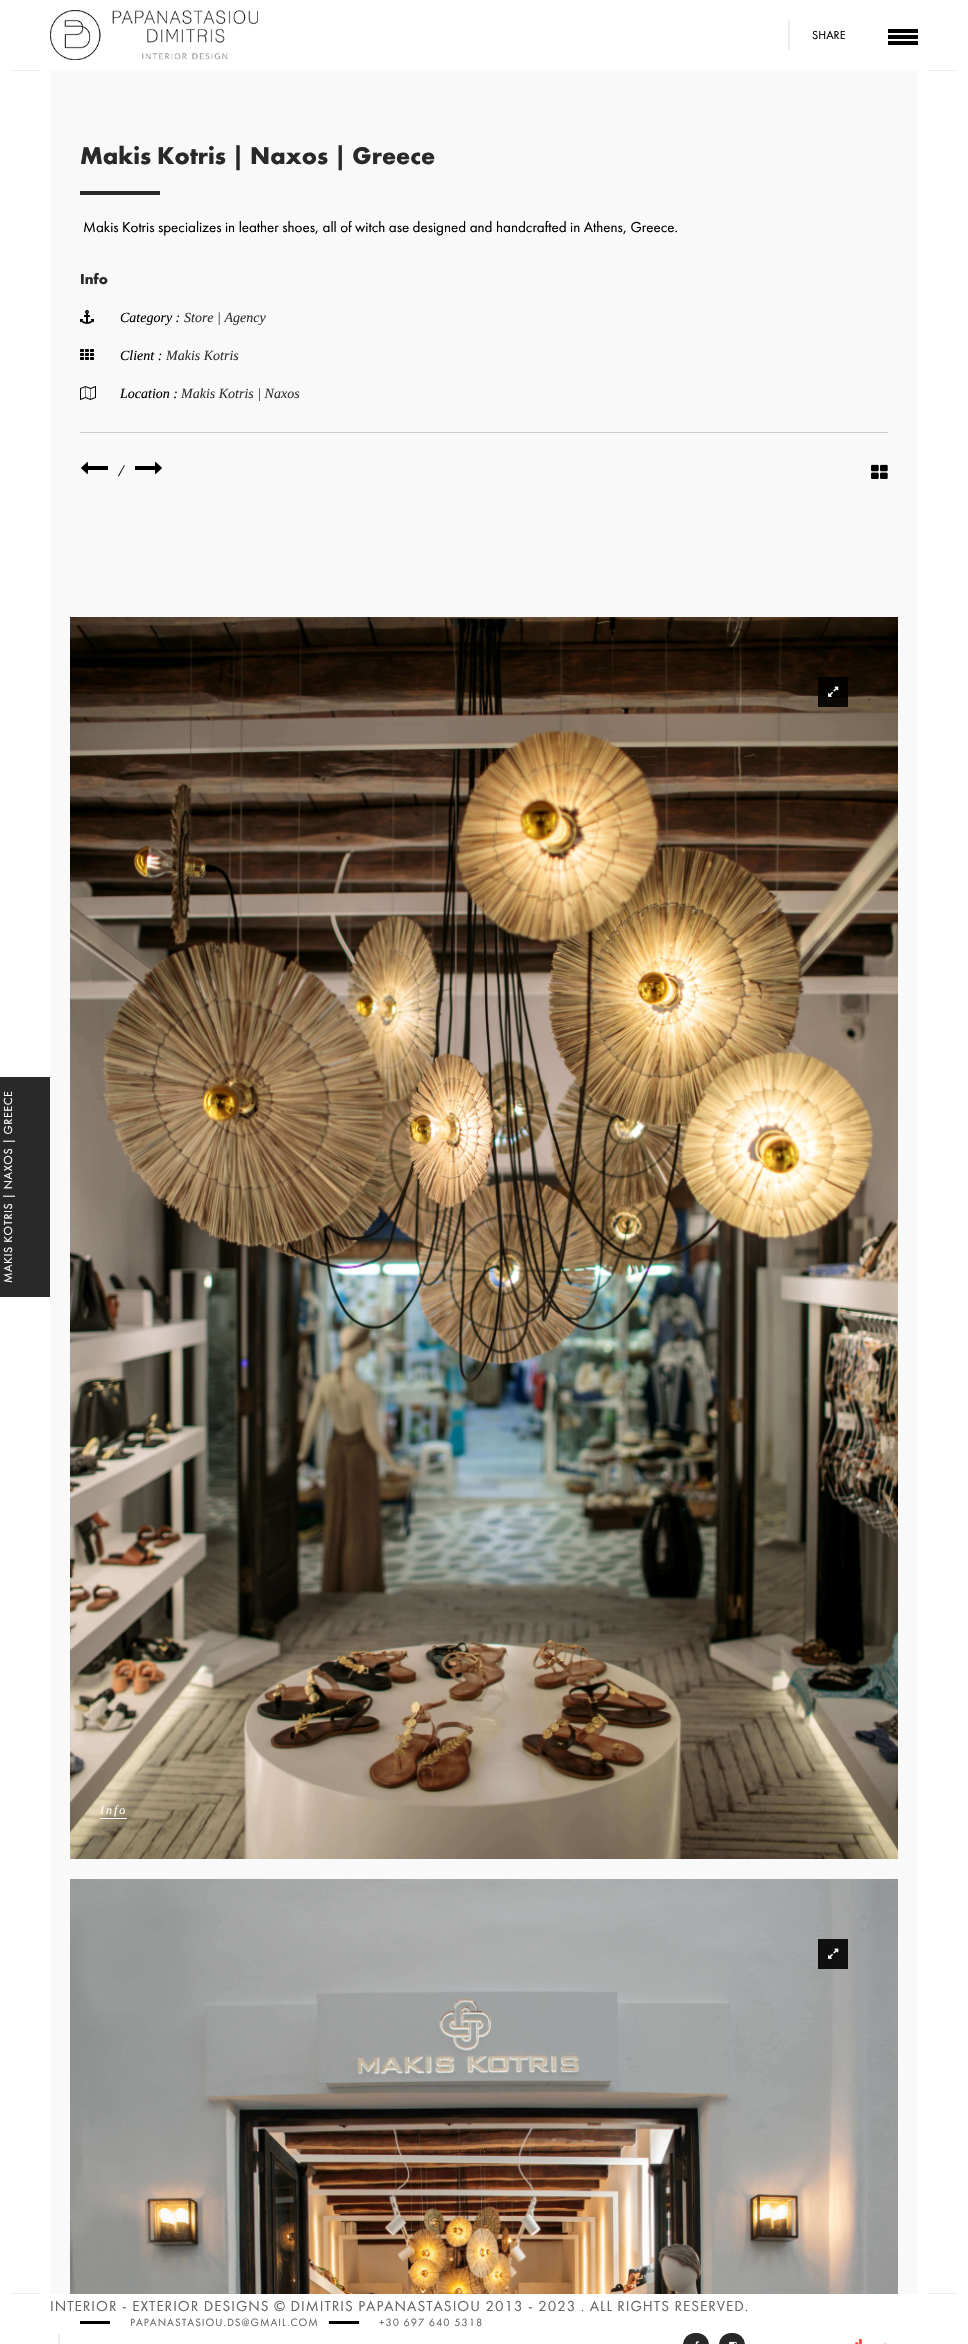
#include "include/core/SkBlurTypes.h"
#include "include/core/SkCanvas.h"
#include "include/core/SkData.h"
#include "include/core/SkFont.h"
#include "include/core/SkFontMgr.h"
#include "include/core/SkImage.h"
#include "include/core/SkMaskFilter.h"
#include "include/core/SkPaint.h"
#include "include/core/SkPathBuilder.h"
#include "include/core/SkTextBlob.h"
#include "include/effects/SkDashPathEffect.h"
#include "include/effects/SkGradientShader.h"
#include "include/utils/SkParsePath.h"

extern sk_sp<SkFontMgr> fontMgr;

static SkFont font(const char* family, int weight, float size, bool italic = false) {
    SkFontStyle style(weight, SkFontStyle::kNormal_Width,
        italic ? SkFontStyle::kItalic_Slant : SkFontStyle::kUpright_Slant);
    SkFont result(fontMgr->matchFamilyStyle(family, style), size);
    result.setSubpixel(true);
    return result;
}

static void drawLabel(SkCanvas* canvas, const char* s, float x, float y, const SkFont& font, SkColor color) {
    SkPaint ink(SkColor4f::FromColor(color));
    ink.setAntiAlias(true);
    canvas->drawString(s, x, y, font, ink);
}

static void drawTracked(SkCanvas* canvas, const char* s, float x, float y, const SkFont& font, const SkPaint& ink, float letter, float word) {
    std::vector<SkGlyphID> glyphs(font.countText(s, strlen(s), SkTextEncoding::kUTF8));
    std::vector<float> xs(glyphs.size());
    font.textToGlyphs(s, strlen(s), SkTextEncoding::kUTF8, glyphs);
    font.getXPos(glyphs, xs, x);
    float extra = 0;
    for (size_t i = 0; i < glyphs.size(); i++) {
        xs[i] += extra;
        extra += letter + word * (glyphs[i] == font.unicharToGlyph(' '));
    }
    canvas->drawTextBlob(SkTextBlob::MakeFromPosHGlyphs(glyphs, xs, y, font), 0, 0, ink);
}

static void fillRect(SkCanvas* canvas, float x, float y, float w, float h, SkColor color) {
    SkPaint ink(SkColor4f::FromColor(color));
    ink.setAntiAlias(true);
    canvas->drawRect(SkRect::MakeXYWH(x, y, w, h), ink);
}

static void fillRRect(SkCanvas* canvas, float x, float y, float w, float h, float radius, SkColor color) {
    SkPaint ink(SkColor4f::FromColor(color));
    ink.setAntiAlias(true);
    canvas->drawRoundRect(SkRect::MakeXYWH(x, y, w, h), radius, radius, ink);
}

static void drawPhoto(SkCanvas* canvas, const char* path, float x, float y, float w, float h) {
    auto image = SkImages::DeferredFromEncodedData(SkData::MakeFromFileName(path));
    canvas->drawImageRect(image, SkRect::MakeXYWH(x, y, w, h), SkSamplingOptions());
}

void draw(SkCanvas* canvas) {
    SkPaint paint;
    paint.setAntiAlias(true);
    canvas->clear(0xFFF9F9F9);
    fillRect(canvas, 0, 0, 968, 70, 0xFFFFFFFF);
    drawPhoto(canvas, "assets/img1.png", 50, 10, 208, 50);
    fillRect(canvas, 788, 20, 2, 30, 0xFFEEEEEE);
    SkFont font1 = font("Futura PT", 400, 12);
    drawLabel(canvas, "SHARE", 812, 39, font1, 0xFF000000);
    fillRect(canvas, 888, 29, 30, 4, 0xFF000000);
    fillRect(canvas, 888, 35, 30, 4, 0xFF000000);
    fillRect(canvas, 888, 41, 30, 4, 0xFF000000);
    fillRect(canvas, 0, 70, 50, 2224, 0xFFFFFFFF);
    fillRect(canvas, 10, 70, 30, 1, 0xFFEEEEEE);
    fillRect(canvas, 10, 2293, 30, 1, 0xFFEEEEEE);
    fillRect(canvas, 918, 70, 50, 2224, 0xFFFFFFFF);
    fillRect(canvas, 928, 70, 30, 1, 0xFFEEEEEE);
    fillRect(canvas, 928, 2293, 30, 1, 0xFFEEEEEE);
    fillRect(canvas, 0, 1077, 50, 220, 0xFF292929);
    paint.setColor(0xFFFFFFFF);
    canvas->save();
    canvas->rotate(-90, 12, 1283);
    drawTracked(canvas, "MAKIS KOTRIS | NAXOS | GREECE", 12, 1283, font1, paint, 0.6f, 0);
    canvas->restore();
    SkFont font2 = font("Futura PT", 700, 25);
    drawLabel(canvas, "Makis Kotris | Naxos | Greece", 80, 164, font2, 0xFF292929);
    fillRect(canvas, 80, 191, 80, 4, 0xFF292929);
    SkFont font3 = font("Futura PT", 400, 15);
    drawLabel(canvas, "Makis Kotris specializes in leather shoes, all of witch ase designed and handcrafted in Athens, Greece.", 83, 232, font3, 0xFF000000);
    SkFont font4 = font("Futura PT", 700, 15);
    drawLabel(canvas, "Info", 80, 284, font4, 0xFF292929);
    fillRect(canvas, 80, 432, 808, 1, 0xFFCCCCCC);
    drawPhoto(canvas, "assets/img2.png", 80, 310, 14, 14);
    SkFont font5 = font("Liberation Serif", 400, 14, true);
    drawLabel(canvas, "Category :", 120, 322, font5, 0xFF000000);
    drawLabel(canvas, "Store | Agency", 184, 322, font5, 0xFF323232);
    drawPhoto(canvas, "assets/img3.png", 80, 349, 14, 11);
    drawLabel(canvas, "Client :", 120, 360, font5, 0xFF000000);
    drawLabel(canvas, "Makis Kotris", 166, 360, font5, 0xFF323232);
    drawPhoto(canvas, "assets/img4.png", 80, 386, 16, 14);
    drawLabel(canvas, "Location :", 120, 398, font5, 0xFF000000);
    drawLabel(canvas, "Makis Kotris | Naxos", 181, 398, font5, 0xFF323232);
    drawPhoto(canvas, "assets/img5.png", 81, 462, 27, 12);
    drawLabel(canvas, "/", 118, 474, font1, 0xFF000000);
    drawPhoto(canvas, "assets/img6.png", 135, 462, 27, 12);
    drawPhoto(canvas, "assets/img7.png", 871, 464, 17, 15);
    drawPhoto(canvas, "assets/img8.png", 70, 617, 828, 1242);
    fillRect(canvas, 818, 677, 30, 30, 0xE8000000);
    drawPhoto(canvas, "assets/img9.png", 828, 686, 11, 11);
    fillRect(canvas, 100, 1818, 27, 1, 0xFFFFFFFF);
    SkFont font6 = font("Liberation Serif", 400, 12, true);
    drawTracked(canvas, "Info", 100, 1814, font6, paint, 2, 0);
    drawPhoto(canvas, "assets/img10.png", 70, 1879, 828, 415);
    fillRect(canvas, 818, 1939, 30, 30, 0xE8000000);
    drawPhoto(canvas, "assets/img11.png", 828, 1948, 11, 11);
    fillRect(canvas, 0, 2294, 968, 50, 0xFFFFFFFF);
    paint.setColor(0xFF666666);
    drawTracked(canvas, "INTERIOR - EXTERIOR DESIGNS © DIMITRIS PAPANASTASIOU 2013 - 2023 . ALL RIGHTS RESERVED.", 50, 2311, font3, paint, 1, 0);
    fillRect(canvas, 80, 2321, 30, 3, 0xFF000000);
    SkFont font7 = font("Futura PT", 400, 11);
    drawTracked(canvas, "PAPANASTASIOU.DS@GMAIL.COM", 130, 2326, font7, paint, 1, 0);
    fillRect(canvas, 329, 2321, 30, 3, 0xFF000000);
    drawTracked(canvas, "+30 697 640 5318", 379, 2326, font7, paint, 1, 0);
    fillRect(canvas, 58, 2334, 2, 10, 0xFFEEEEEE);
    fillRRect(canvas, 683, 2333, 26, 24, 13, 0xFF292929);
    drawPhoto(canvas, "assets/img12.png", 695, 2341, 4, 3);
    fillRRect(canvas, 719, 2333, 26, 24, 13, 0xFF292929);
    drawPhoto(canvas, "assets/img13.png", 729, 2341, 8, 3);
    drawPhoto(canvas, "assets/img14.png", 855, 2339, 32, 5);
}
